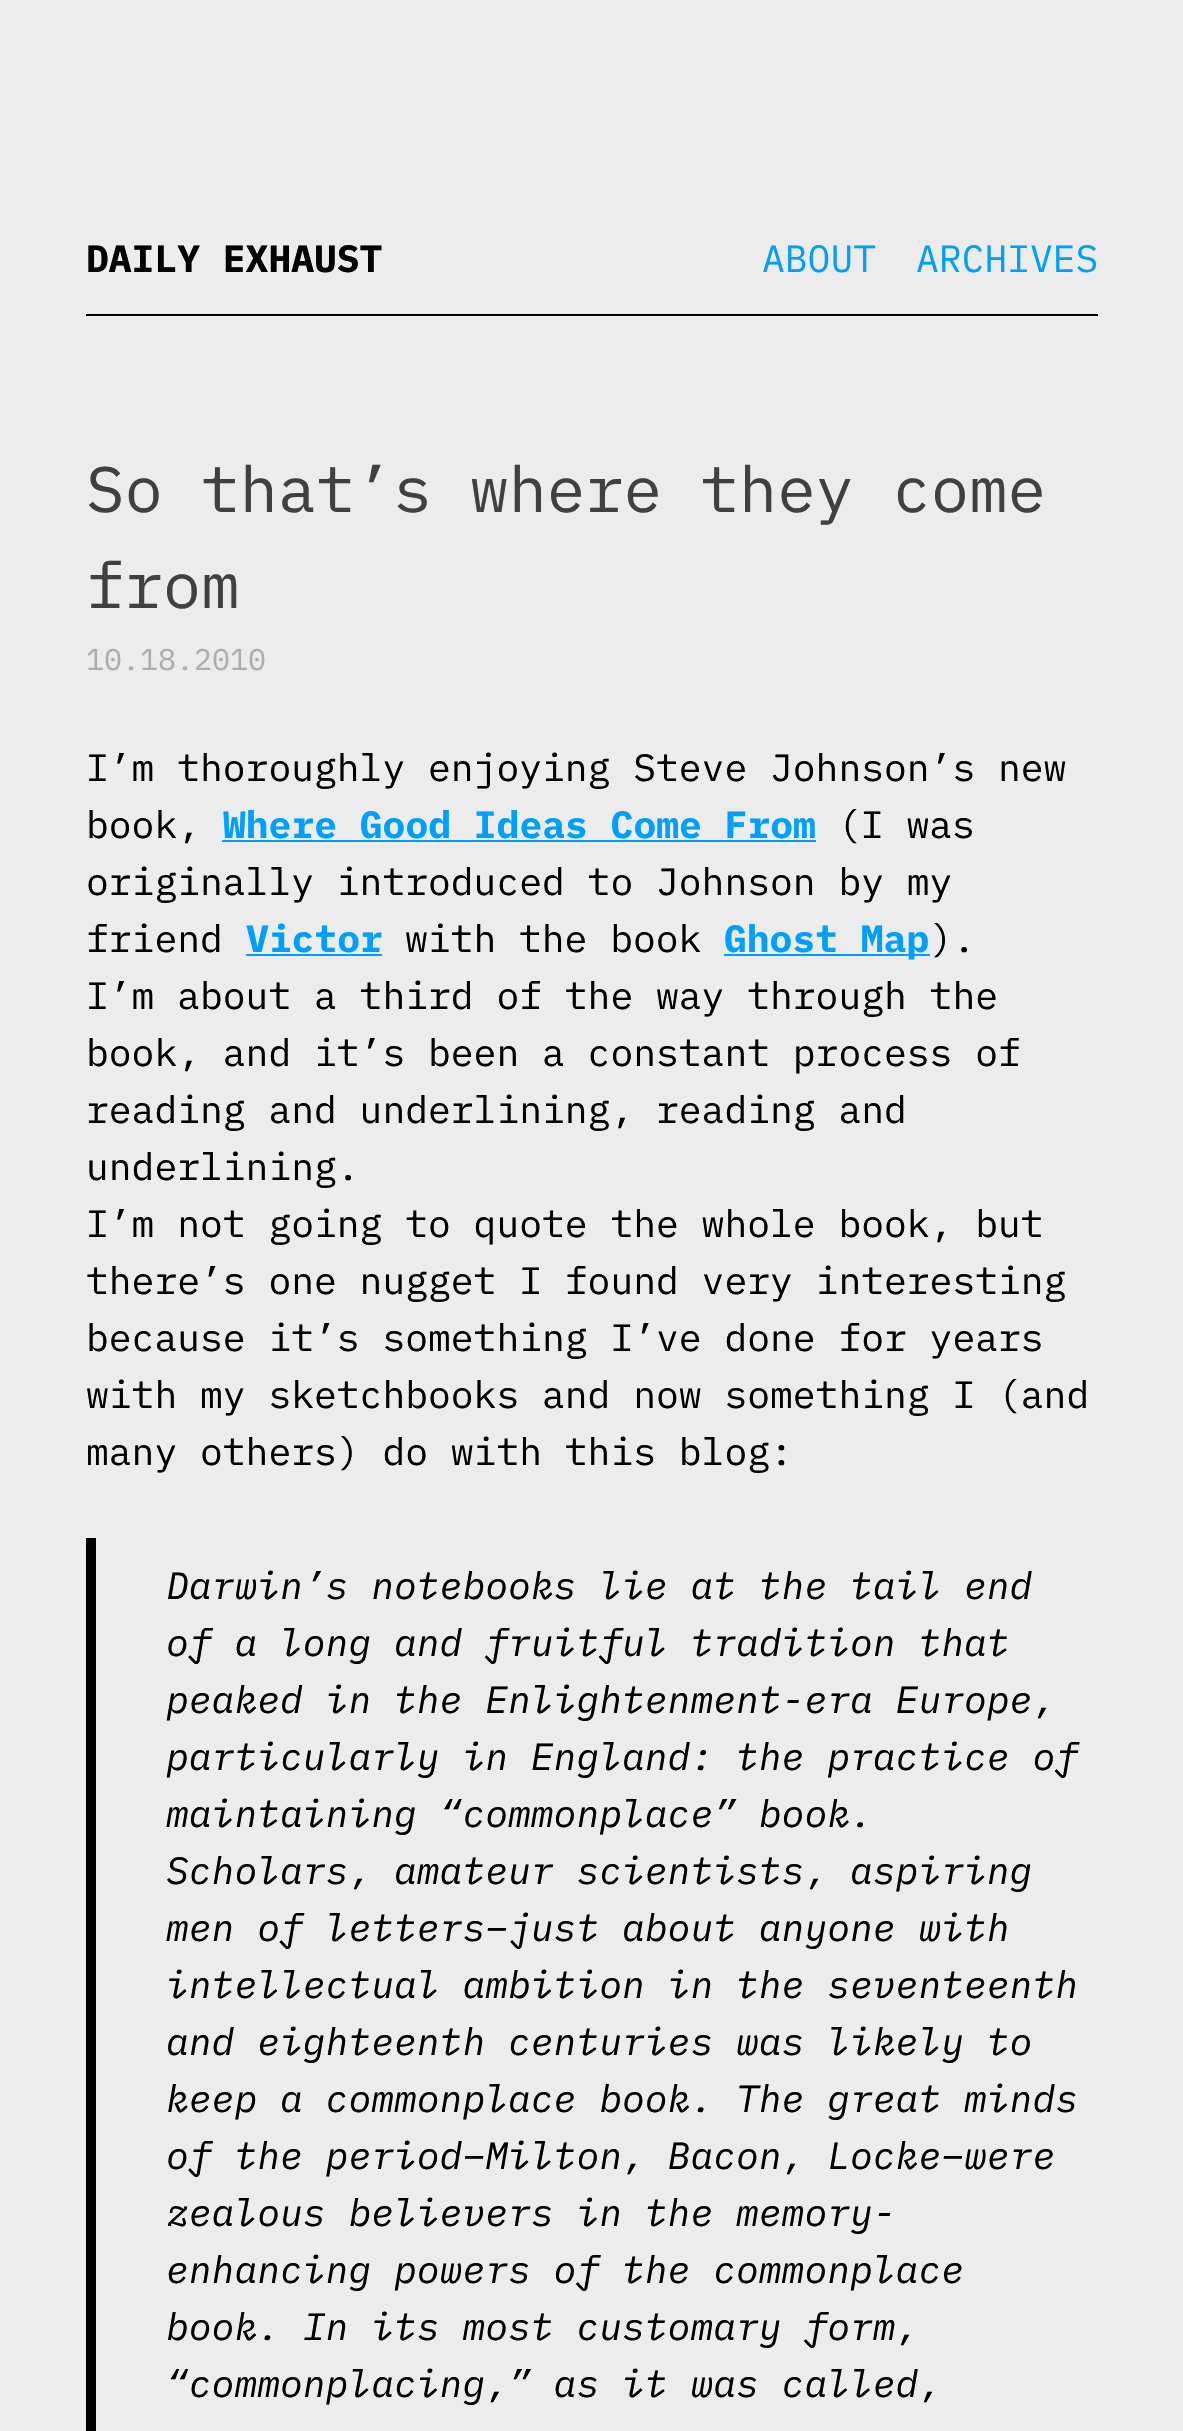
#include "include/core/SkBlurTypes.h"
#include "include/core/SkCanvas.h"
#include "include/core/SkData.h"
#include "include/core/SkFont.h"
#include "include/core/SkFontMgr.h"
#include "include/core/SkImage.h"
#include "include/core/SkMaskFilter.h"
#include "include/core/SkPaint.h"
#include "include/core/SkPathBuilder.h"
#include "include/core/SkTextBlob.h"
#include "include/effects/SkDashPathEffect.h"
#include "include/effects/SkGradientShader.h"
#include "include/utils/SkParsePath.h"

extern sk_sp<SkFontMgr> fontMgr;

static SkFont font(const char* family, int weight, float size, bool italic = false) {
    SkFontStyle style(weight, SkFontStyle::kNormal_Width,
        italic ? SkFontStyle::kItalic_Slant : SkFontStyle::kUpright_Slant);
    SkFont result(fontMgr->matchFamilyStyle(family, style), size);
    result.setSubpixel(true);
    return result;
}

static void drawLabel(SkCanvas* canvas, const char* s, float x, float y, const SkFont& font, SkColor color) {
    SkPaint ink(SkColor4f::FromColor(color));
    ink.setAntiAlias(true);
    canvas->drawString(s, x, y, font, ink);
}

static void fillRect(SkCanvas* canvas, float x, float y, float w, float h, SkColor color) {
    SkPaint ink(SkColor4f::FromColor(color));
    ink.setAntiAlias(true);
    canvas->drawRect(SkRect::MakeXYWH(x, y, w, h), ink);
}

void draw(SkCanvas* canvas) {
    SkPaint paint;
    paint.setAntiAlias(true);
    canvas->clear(0xFFECECEC);
    fillRect(canvas, 86, 314, 1012, 2, 0xFF000000);
    SkFont font1 = font("IBM Plex Mono", 700, 38);
    drawLabel(canvas, "DAILY EXHAUST", 86, 272, font1, 0xFF000000);
    SkFont font2 = font("IBM Plex Mono", 400, 38);
    drawLabel(canvas, "ABOUT", 762, 272, font2, 0xFF009FFF);
    drawLabel(canvas, "ARCHIVES", 916, 272, font2, 0xFF009FFF);
    SkFont font3 = font("IBM Plex Mono", 400, 64);
    drawLabel(canvas, "So that’s where they come", 86, 512, font3, 0xFF404040);
    drawLabel(canvas, "from", 86, 608, font3, 0xFF404040);
    SkFont font4 = font("IBM Plex Mono", 400, 30);
    drawLabel(canvas, "10.18.2010", 86, 670, font4, 0xFFADADAD);
    drawLabel(canvas, "I’m thoroughly enjoying Steve Johnson’s new", 86, 781, font2, 0xFF000000);
    drawLabel(canvas, "book,", 86, 838, font2, 0xFF000000);
    drawLabel(canvas, "Where Good Ideas Come From", 223, 838, font1, 0xFF009FFF);
    fillRect(canvas, 222, 840, 594, 2, 0xFF009FFF);
    drawLabel(canvas, "(I was", 838, 838, font2, 0xFF000000);
    drawLabel(canvas, "originally introduced to Johnson by my", 86, 895, font2, 0xFF000000);
    drawLabel(canvas, "friend", 86, 952, font2, 0xFF000000);
    drawLabel(canvas, "Victor", 246, 952, font1, 0xFF009FFF);
    fillRect(canvas, 246, 954, 136, 2, 0xFF009FFF);
    drawLabel(canvas, "with the book", 405, 952, font2, 0xFF000000);
    fillRect(canvas, 724, 954, 206, 2, 0xFF009FFF);
    drawLabel(canvas, "Ghost Map", 724, 952, font1, 0xFF009FFF);
    drawLabel(canvas, ").", 930, 952, font2, 0xFF000000);
    drawLabel(canvas, "I’m about a third of the way through the", 86, 1009, font2, 0xFF000000);
    drawLabel(canvas, "book, and it’s been a constant process of", 86, 1066, font2, 0xFF000000);
    drawLabel(canvas, "reading and underlining, reading and", 86, 1123, font2, 0xFF000000);
    drawLabel(canvas, "underlining.", 86, 1180, font2, 0xFF000000);
    drawLabel(canvas, "I’m not going to quote the whole book, but", 86, 1237, font2, 0xFF000000);
    drawLabel(canvas, "there’s one nugget I found very interesting", 86, 1294, font2, 0xFF000000);
    drawLabel(canvas, "because it’s something I’ve done for years", 86, 1351, font2, 0xFF000000);
    drawLabel(canvas, "with my sketchbooks and now something I (and", 86, 1408, font2, 0xFF000000);
    drawLabel(canvas, "many others) do with this blog:", 86, 1465, font2, 0xFF000000);
    fillRect(canvas, 86, 1538, 10, 893, 0xFF000000);
    SkFont font5 = font("IBM Plex Mono", 400, 38, true);
    drawLabel(canvas, "Darwin’s notebooks lie at the tail end", 166, 1599, font5, 0xFF000000);
    drawLabel(canvas, "of a long and fruitful tradition that", 166, 1656, font5, 0xFF000000);
    drawLabel(canvas, "peaked in the Enlightenment-era Europe,", 166, 1713, font5, 0xFF000000);
    drawLabel(canvas, "particularly in England: the practice of", 166, 1770, font5, 0xFF000000);
    drawLabel(canvas, "maintaining “commonplace” book.", 166, 1827, font5, 0xFF000000);
    drawLabel(canvas, "Scholars, amateur scientists, aspiring", 166, 1884, font5, 0xFF000000);
    drawLabel(canvas, "men of letters–just about anyone with", 166, 1941, font5, 0xFF000000);
    drawLabel(canvas, "intellectual ambition in the seventeenth", 166, 1998, font5, 0xFF000000);
    drawLabel(canvas, "and eighteenth centuries was likely to", 166, 2055, font5, 0xFF000000);
    drawLabel(canvas, "keep a commonplace book. The great minds", 166, 2112, font5, 0xFF000000);
    drawLabel(canvas, "of the period–Milton, Bacon, Locke–were", 166, 2169, font5, 0xFF000000);
    drawLabel(canvas, "zealous believers in the memory-", 166, 2226, font5, 0xFF000000);
    drawLabel(canvas, "enhancing powers of the commonplace", 166, 2283, font5, 0xFF000000);
    drawLabel(canvas, "book. In its most customary form,", 166, 2340, font5, 0xFF000000);
    drawLabel(canvas, "“commonplacing,” as it was called,", 166, 2397, font5, 0xFF000000);
}
